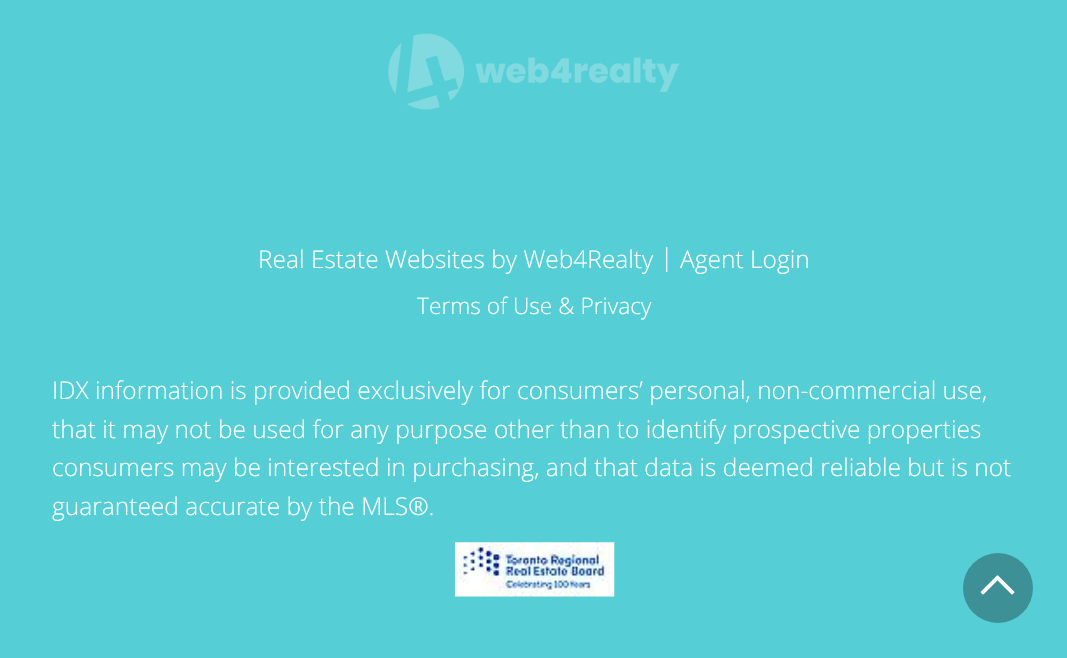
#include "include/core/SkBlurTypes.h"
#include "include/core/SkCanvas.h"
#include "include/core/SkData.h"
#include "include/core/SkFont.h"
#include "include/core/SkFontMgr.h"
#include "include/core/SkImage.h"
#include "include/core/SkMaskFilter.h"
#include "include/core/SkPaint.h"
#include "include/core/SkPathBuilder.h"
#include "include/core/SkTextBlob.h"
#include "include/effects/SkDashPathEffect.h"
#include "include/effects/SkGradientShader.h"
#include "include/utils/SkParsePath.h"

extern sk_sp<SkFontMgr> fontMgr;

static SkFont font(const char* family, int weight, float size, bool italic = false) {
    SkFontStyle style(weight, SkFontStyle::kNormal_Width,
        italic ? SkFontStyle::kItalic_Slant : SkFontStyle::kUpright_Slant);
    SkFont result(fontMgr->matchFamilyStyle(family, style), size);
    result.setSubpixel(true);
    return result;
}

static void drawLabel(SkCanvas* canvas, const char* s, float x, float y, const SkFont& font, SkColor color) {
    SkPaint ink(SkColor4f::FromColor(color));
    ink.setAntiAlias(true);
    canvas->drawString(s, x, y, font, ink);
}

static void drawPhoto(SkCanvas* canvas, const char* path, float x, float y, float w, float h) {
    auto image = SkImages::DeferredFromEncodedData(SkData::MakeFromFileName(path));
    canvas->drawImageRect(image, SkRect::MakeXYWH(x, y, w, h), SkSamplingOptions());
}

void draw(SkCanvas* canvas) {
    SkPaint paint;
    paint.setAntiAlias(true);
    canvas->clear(0xFF55CED6);
    drawPhoto(canvas, "assets/img1.png", 388, 33, 292, 77);
    SkFont font1 = font("Open Sans", 300, 24.5f);
    drawLabel(canvas, "Real Estate Websites by Web4Realty", 258, 268, font1, 0xFFFFFFFF);
    drawLabel(canvas, "|", 660, 266, font1, 0xFFFFFFFF);
    drawLabel(canvas, "Agent Login", 680, 268, font1, 0xFFFFFFFF);
    SkFont font2 = font("Open Sans", 300, 22.75f);
    drawLabel(canvas, "Terms of Use & Privacy", 417, 314, font2, 0xFFFFFFFF);
    drawLabel(canvas, "IDX information is provided exclusively for consumers’ personal, non-commercial use,", 52, 399, font1, 0xFFFFFFFF);
    drawLabel(canvas, "that it may not be used for any purpose other than to identify prospective properties", 52, 438, font1, 0xFFFFFFFF);
    drawLabel(canvas, "consumers may be interested in purchasing, and that data is deemed reliable but is not", 52, 476, font1, 0xFFFFFFFF);
    drawLabel(canvas, "guaranteed accurate by the MLS®.", 52, 515, font1, 0xFFFFFFFF);
    drawPhoto(canvas, "assets/img2.png", 455, 542, 160, 55);
    paint.setColor(0xFF3C9096);
    canvas->drawCircle(998, 588, 35, paint);
    drawPhoto(canvas, "assets/img3.png", 980, 575, 35, 20);
}
